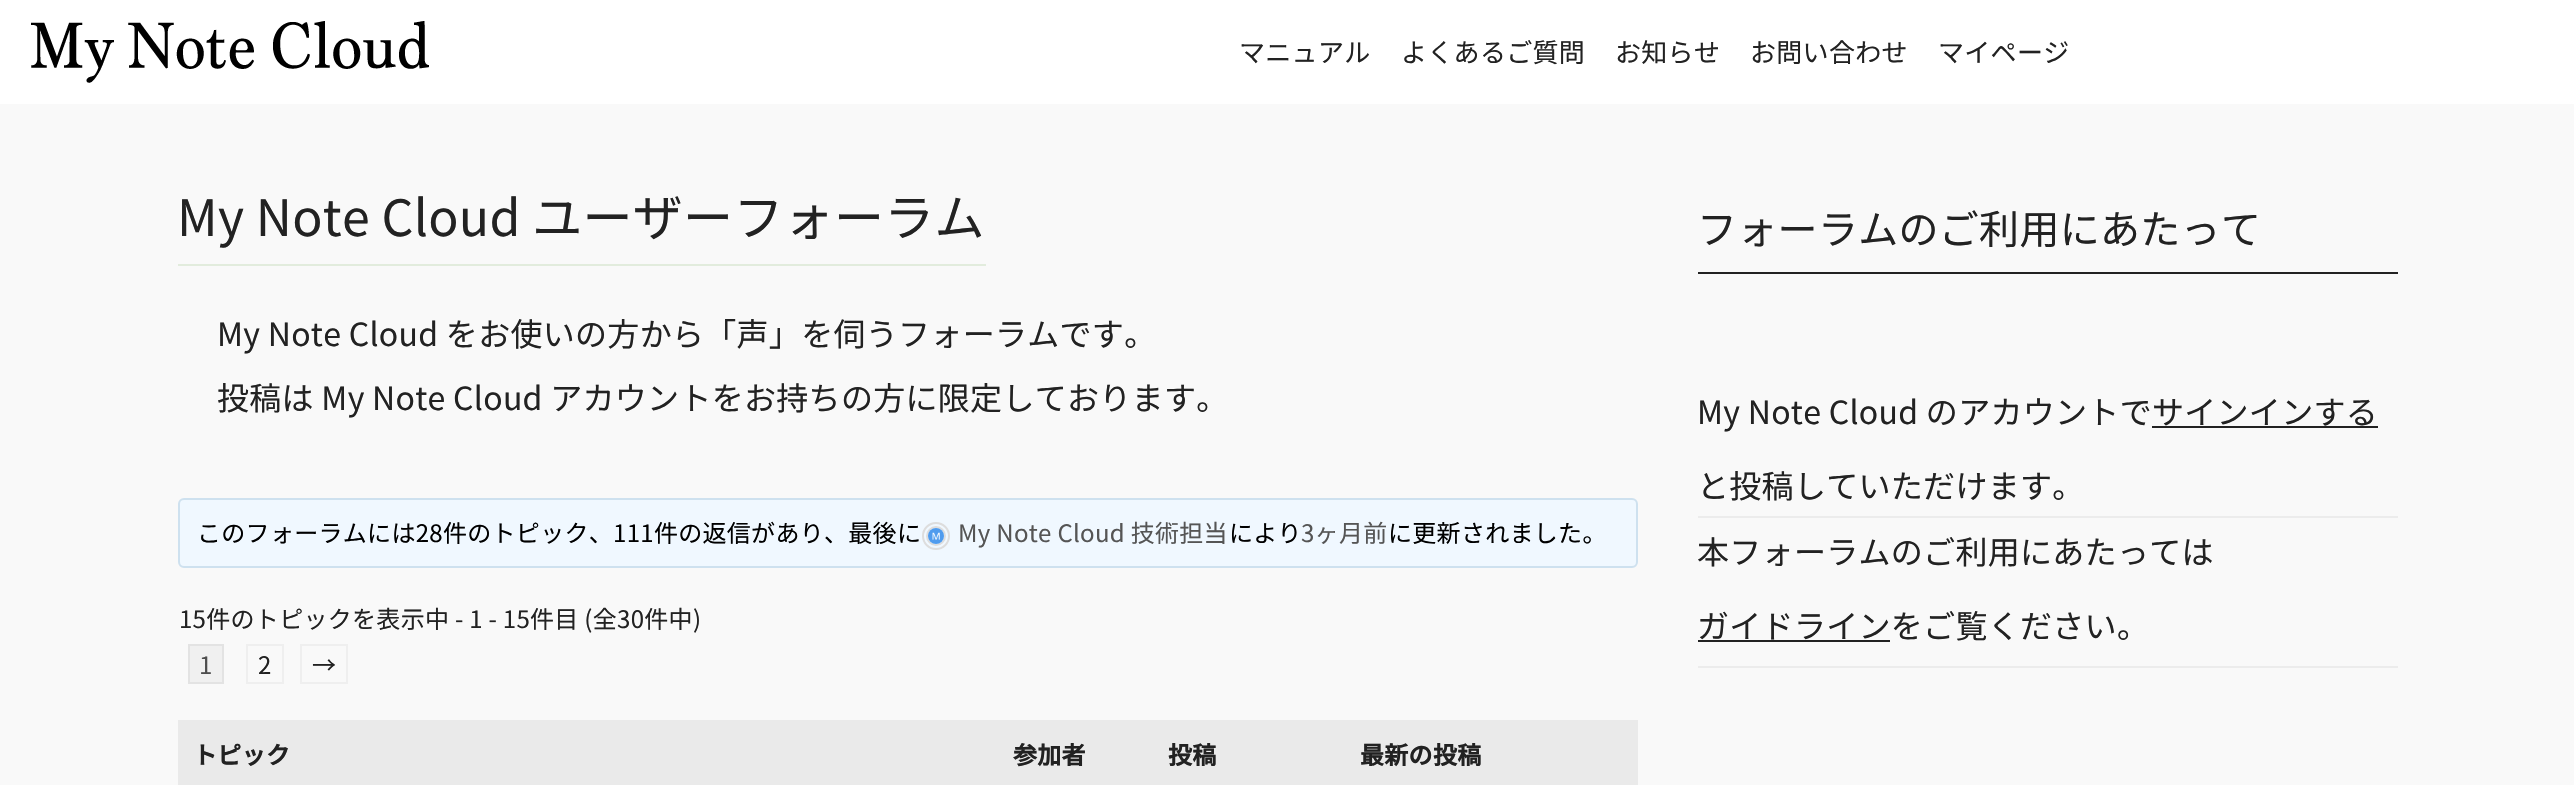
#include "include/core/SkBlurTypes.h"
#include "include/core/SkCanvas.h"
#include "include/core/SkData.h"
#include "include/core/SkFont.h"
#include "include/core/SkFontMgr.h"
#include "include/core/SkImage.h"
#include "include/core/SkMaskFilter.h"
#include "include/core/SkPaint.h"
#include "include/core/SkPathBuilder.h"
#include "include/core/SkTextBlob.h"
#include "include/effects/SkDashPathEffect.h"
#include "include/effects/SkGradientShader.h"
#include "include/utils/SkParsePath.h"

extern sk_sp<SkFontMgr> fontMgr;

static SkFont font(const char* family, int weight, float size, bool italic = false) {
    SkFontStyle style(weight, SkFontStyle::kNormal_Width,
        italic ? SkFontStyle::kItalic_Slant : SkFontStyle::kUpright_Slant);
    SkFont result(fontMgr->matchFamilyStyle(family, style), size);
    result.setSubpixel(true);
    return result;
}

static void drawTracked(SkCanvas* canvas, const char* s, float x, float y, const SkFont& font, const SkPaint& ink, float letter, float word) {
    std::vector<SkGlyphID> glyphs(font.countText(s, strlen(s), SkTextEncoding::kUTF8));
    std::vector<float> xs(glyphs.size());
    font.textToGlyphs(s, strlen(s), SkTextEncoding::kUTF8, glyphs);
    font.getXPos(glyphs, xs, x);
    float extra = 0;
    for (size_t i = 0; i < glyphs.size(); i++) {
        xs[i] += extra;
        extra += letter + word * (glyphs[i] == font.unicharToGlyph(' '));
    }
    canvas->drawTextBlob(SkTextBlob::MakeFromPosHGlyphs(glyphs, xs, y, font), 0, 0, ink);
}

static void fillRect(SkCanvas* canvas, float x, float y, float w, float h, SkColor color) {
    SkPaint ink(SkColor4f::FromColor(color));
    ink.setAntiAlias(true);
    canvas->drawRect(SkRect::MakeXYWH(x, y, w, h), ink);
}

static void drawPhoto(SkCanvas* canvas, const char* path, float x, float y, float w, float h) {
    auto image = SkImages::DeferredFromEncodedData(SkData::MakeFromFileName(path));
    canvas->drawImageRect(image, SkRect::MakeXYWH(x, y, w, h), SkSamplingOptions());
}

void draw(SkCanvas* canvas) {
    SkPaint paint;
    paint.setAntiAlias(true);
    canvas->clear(0xFFF9F9F9);
    fillRect(canvas, 0, 0, 2574, 104, 0xFFFFFFFF);
    drawPhoto(canvas, "assets/img1.png", 31, 21, 398, 62);
    SkFont font1 = font("Noto Sans JP", 400, 26);
    paint.setColor(0xFF222222);
    drawTracked(canvas, "マニュアル", 1239, 62, font1, paint, 0.3f, 0);
    drawTracked(canvas, "よくあるご質問", 1401, 62, font1, paint, 0.3f, 0);
    drawTracked(canvas, "お知らせ", 1615, 62, font1, paint, 0.3f, 0);
    drawTracked(canvas, "お問い合わせ", 1750, 62, font1, paint, 0.3f, 0);
    drawTracked(canvas, "マイページ", 1938, 62, font1, paint, 0.3f, 0);
    fillRect(canvas, 178, 264, 808, 2, 0xFFE2ECDD);
    SkFont font2 = font("Noto Sans JP", 400, 50);
    drawTracked(canvas, "My Note Cloud ユーザーフォーラム", 177, 236, font2, paint, 0.3f, 0);
    SkFont font3 = font("Noto Sans JP", 400, 32);
    drawTracked(canvas, "My Note Cloud をお使いの方から「声」を伺うフォーラムです。", 217, 346, font3, paint, 0.3f, 0);
    drawTracked(canvas, "投稿は My Note Cloud アカウントをお持ちの方に限定しております。", 217, 410, font3, paint, 0.3f, 0);
    paint.setColor(0xFFF0F8FF);
    canvas->drawRoundRect(SkRect::MakeXYWH(179, 499, 1458, 68), 5, 5, paint);
    paint.setStroke(true);
    paint.setStrokeWidth(2);
    paint.setColor(0xFFCEE1EF);
    canvas->drawRoundRect(SkRect::MakeXYWH(179, 499, 1458, 68), 5, 5, paint);
    SkFont font4 = font("Noto Sans JP", 400, 24);
    paint.setStroke(false);
    paint.setColor(0xFF000000);
    drawTracked(canvas, "このフォーラムには28件のトピック、111件の返信があり、最後に", 197, 542, font4, paint, 0.3f, 0);
    paint.setStroke(true);
    paint.setColor(0xFFDDDDDD);
    canvas->drawCircle(936, 536, 13, paint);
    canvas->drawCircle(936, 536, 9, paint);
    drawPhoto(canvas, "assets/img2.png", 928, 528, 16, 16);
    paint.setStroke(false);
    paint.setColor(0xFF555555);
    drawTracked(canvas, "My Note Cloud 技術担当", 958, 542, font4, paint, 0.3f, 0);
    paint.setColor(0xFF000000);
    drawTracked(canvas, "により", 1229, 542, font4, paint, 0.3f, 0);
    paint.setColor(0xFF555555);
    drawTracked(canvas, "3ヶ月前", 1301, 542, font4, paint, 0.3f, 0);
    paint.setColor(0xFF000000);
    drawTracked(canvas, "に更新されました。", 1388, 542, font4, paint, 0.3f, 0);
    paint.setColor(0xFF222222);
    drawTracked(canvas, "15件のトピックを表示中 - 1 - 15件目 (全30件中)", 179, 628, font4, paint, 0.3f, 0);
    paint.setColor(0xFFF0F0F0);
    canvas->drawRect(SkRect::MakeXYWH(189, 645, 34, 38), paint);
    paint.setStroke(true);
    paint.setColor(0xFFE3E3E3);
    canvas->drawRect(SkRect::MakeXYWH(189, 645, 34, 38), paint);
    paint.setStroke(false);
    paint.setColor(0xFF4D4D4D);
    drawTracked(canvas, "1", 199, 674, font4, paint, 0.3f, 0);
    paint.setStroke(true);
    paint.setColor(0xFFEFEFEF);
    canvas->drawRect(SkRect::MakeXYWH(247, 645, 36, 38), paint);
    paint.setStroke(false);
    paint.setColor(0xFF222222);
    drawTracked(canvas, "2", 258, 674, font4, paint, 0.3f, 0);
    paint.setStroke(true);
    paint.setColor(0xFFEFEFEF);
    canvas->drawRect(SkRect::MakeXYWH(301, 645, 46, 38), paint);
    paint.setStroke(false);
    paint.setColor(0xFF222222);
    drawTracked(canvas, "→", 312, 674, font4, paint, 0.3f, 0);
    fillRect(canvas, 178, 720, 1460, 65, 0xFFEAEAEA);
    SkFont font5 = font("Noto Sans JP", 700, 24);
    drawTracked(canvas, "トピック", 193, 764, font5, paint, 0.3f, 0);
    drawTracked(canvas, "参加者", 1013, 764, font5, paint, 0.3f, 0);
    drawTracked(canvas, "投稿", 1168, 764, font5, paint, 0.3f, 0);
    drawTracked(canvas, "最新の投稿", 1360, 764, font5, paint, 0.3f, 0);
    fillRect(canvas, 1698, 272, 700, 2, 0xFF222222);
    SkFont font6 = font("Noto Sans JP", 400, 40);
    drawTracked(canvas, "フォーラムのご利用にあたって", 1697, 244, font6, paint, 0.3f, 0);
    fillRect(canvas, 1698, 516, 700, 2, 0xFFECECEC);
    drawTracked(canvas, "My Note Cloud のアカウントでサインインする", 1697, 424, font3, paint, 0.3f, 0);
    fillRect(canvas, 2152, 426, 226, 2, 0xFF222222);
    drawTracked(canvas, "と投稿していただけます。", 1697, 498, font3, paint, 0.3f, 0);
    fillRect(canvas, 1698, 666, 700, 2, 0xFFECECEC);
    drawTracked(canvas, "本フォーラムのご利用にあたっては", 1697, 564, font3, paint, 0.3f, 0);
    fillRect(canvas, 1698, 640, 192, 2, 0xFF222222);
    drawTracked(canvas, "ガイドラインをご覧ください。", 1697, 638, font3, paint, 0.3f, 0);
}
